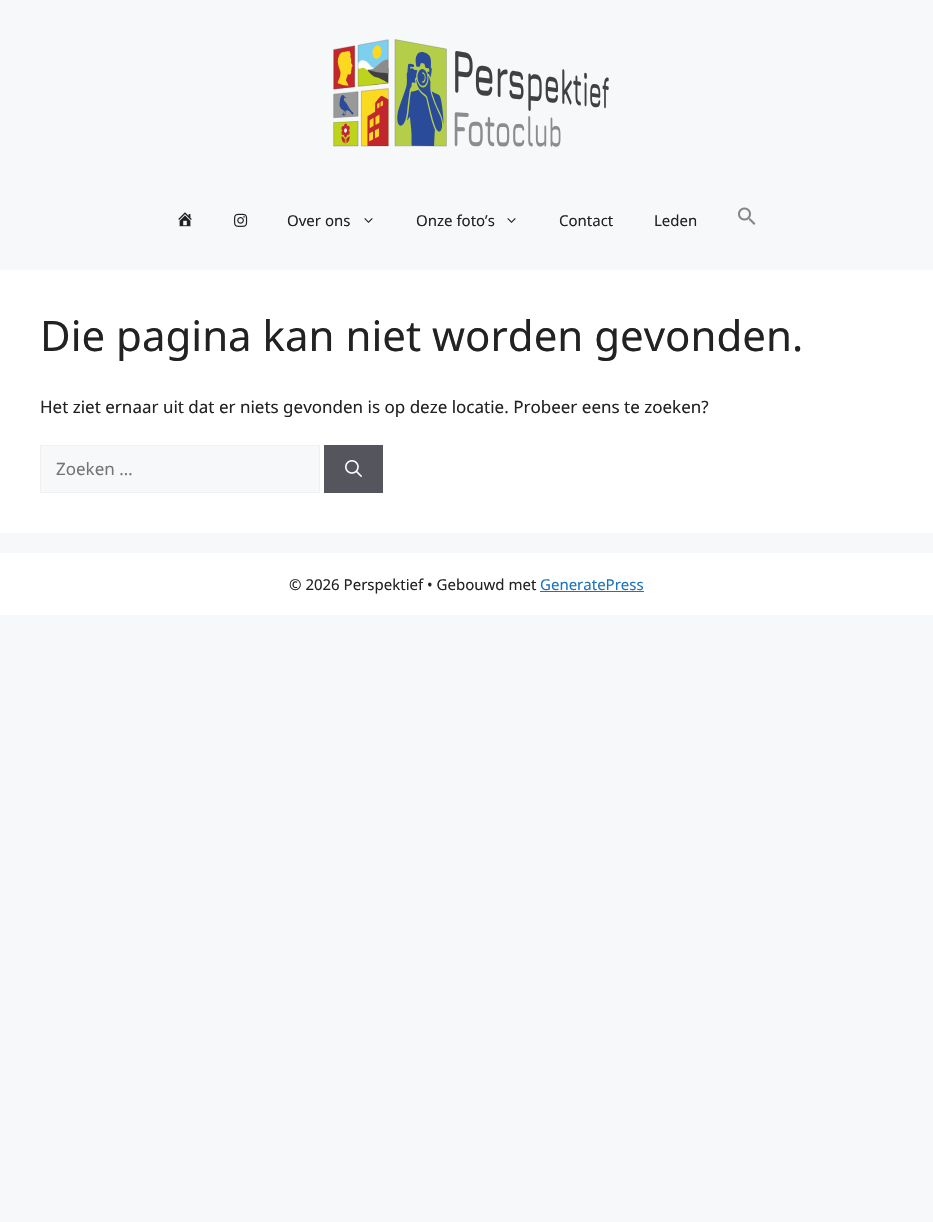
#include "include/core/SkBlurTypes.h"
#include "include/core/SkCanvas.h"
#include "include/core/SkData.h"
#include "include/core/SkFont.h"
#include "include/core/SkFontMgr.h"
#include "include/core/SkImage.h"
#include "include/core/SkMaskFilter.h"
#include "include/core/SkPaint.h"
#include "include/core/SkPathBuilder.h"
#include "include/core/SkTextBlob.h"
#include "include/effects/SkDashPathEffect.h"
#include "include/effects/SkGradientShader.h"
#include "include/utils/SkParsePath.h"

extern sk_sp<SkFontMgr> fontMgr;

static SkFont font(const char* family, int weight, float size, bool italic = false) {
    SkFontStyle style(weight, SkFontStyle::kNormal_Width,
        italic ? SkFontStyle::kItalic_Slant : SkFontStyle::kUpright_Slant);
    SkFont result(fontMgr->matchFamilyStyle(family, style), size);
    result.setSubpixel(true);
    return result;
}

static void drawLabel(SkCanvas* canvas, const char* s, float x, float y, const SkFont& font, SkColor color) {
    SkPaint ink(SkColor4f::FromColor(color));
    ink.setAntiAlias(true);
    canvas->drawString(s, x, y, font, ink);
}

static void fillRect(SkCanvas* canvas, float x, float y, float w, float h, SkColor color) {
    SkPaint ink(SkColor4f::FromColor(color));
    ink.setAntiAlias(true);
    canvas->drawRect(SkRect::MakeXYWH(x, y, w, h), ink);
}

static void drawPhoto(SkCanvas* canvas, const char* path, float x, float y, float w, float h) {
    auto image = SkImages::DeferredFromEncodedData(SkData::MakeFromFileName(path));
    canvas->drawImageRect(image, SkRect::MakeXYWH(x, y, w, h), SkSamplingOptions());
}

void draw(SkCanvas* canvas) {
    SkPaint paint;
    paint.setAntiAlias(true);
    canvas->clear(0xFFF7F8F9);
    drawPhoto(canvas, "assets/img1.png", 333, 39, 276, 108);
    drawPhoto(canvas, "assets/img2.png", 178, 212, 14, 15);
    drawPhoto(canvas, "assets/img3.png", 234, 213, 14, 14);
    SkFont font1 = font("Noto Sans", 400, 15);
    drawLabel(canvas, "Over ons", 287, 226, font1, 0xFF222222);
    drawPhoto(canvas, "assets/img4.png", 364, 218, 9, 5);
    drawLabel(canvas, "Onze foto’s", 416, 226, font1, 0xFF222222);
    drawPhoto(canvas, "assets/img4.png", 507, 218, 9, 5);
    drawLabel(canvas, "Contact", 559, 226, font1, 0xFF222222);
    drawLabel(canvas, "Leden", 654, 226, font1, 0xFF222222);
    drawPhoto(canvas, "assets/img5.png", 738, 207, 18, 18);
    fillRect(canvas, 0, 270, 933, 263, 0xFFFFFFFF);
    SkFont font2 = font("Noto Sans", 400, 42);
    drawLabel(canvas, "Die pagina kan niet worden gevonden.", 40, 351, font2, 0xFF222222);
    SkFont font3 = font("Noto Sans", 400, 17);
    drawLabel(canvas, "Het ziet ernaar uit dat er niets gevonden is op deze locatie. Probeer eens te zoeken?", 40, 413, font3, 0xFF222222);
    paint.setColor(0xFFF7F8F9);
    canvas->drawRect(SkRect::MakeXYWH(40.5f, 445.5f, 279, 47), paint);
    paint.setStroke(true);
    paint.setStrokeWidth(1);
    paint.setColor(0xFFF0F0F0);
    canvas->drawRect(SkRect::MakeXYWH(40.5f, 445.5f, 279, 47), paint);
    drawLabel(canvas, "Zoeken …", 56, 475, font3, 0xFF757575);
    fillRect(canvas, 324, 445, 59, 48, 0xFF55555E);
    drawPhoto(canvas, "assets/img6.png", 345, 460, 17, 17);
    fillRect(canvas, 0, 553, 933, 62, 0xFFFFFFFF);
    drawLabel(canvas, "© 2026 Perspektief • Gebouwd met", 289, 590, font1, 0xFF222222);
    drawLabel(canvas, "GeneratePress", 540, 590, font1, 0xFF1E73BE);
    fillRect(canvas, 540, 591, 104, 1, 0xFF1E73BE);
}
